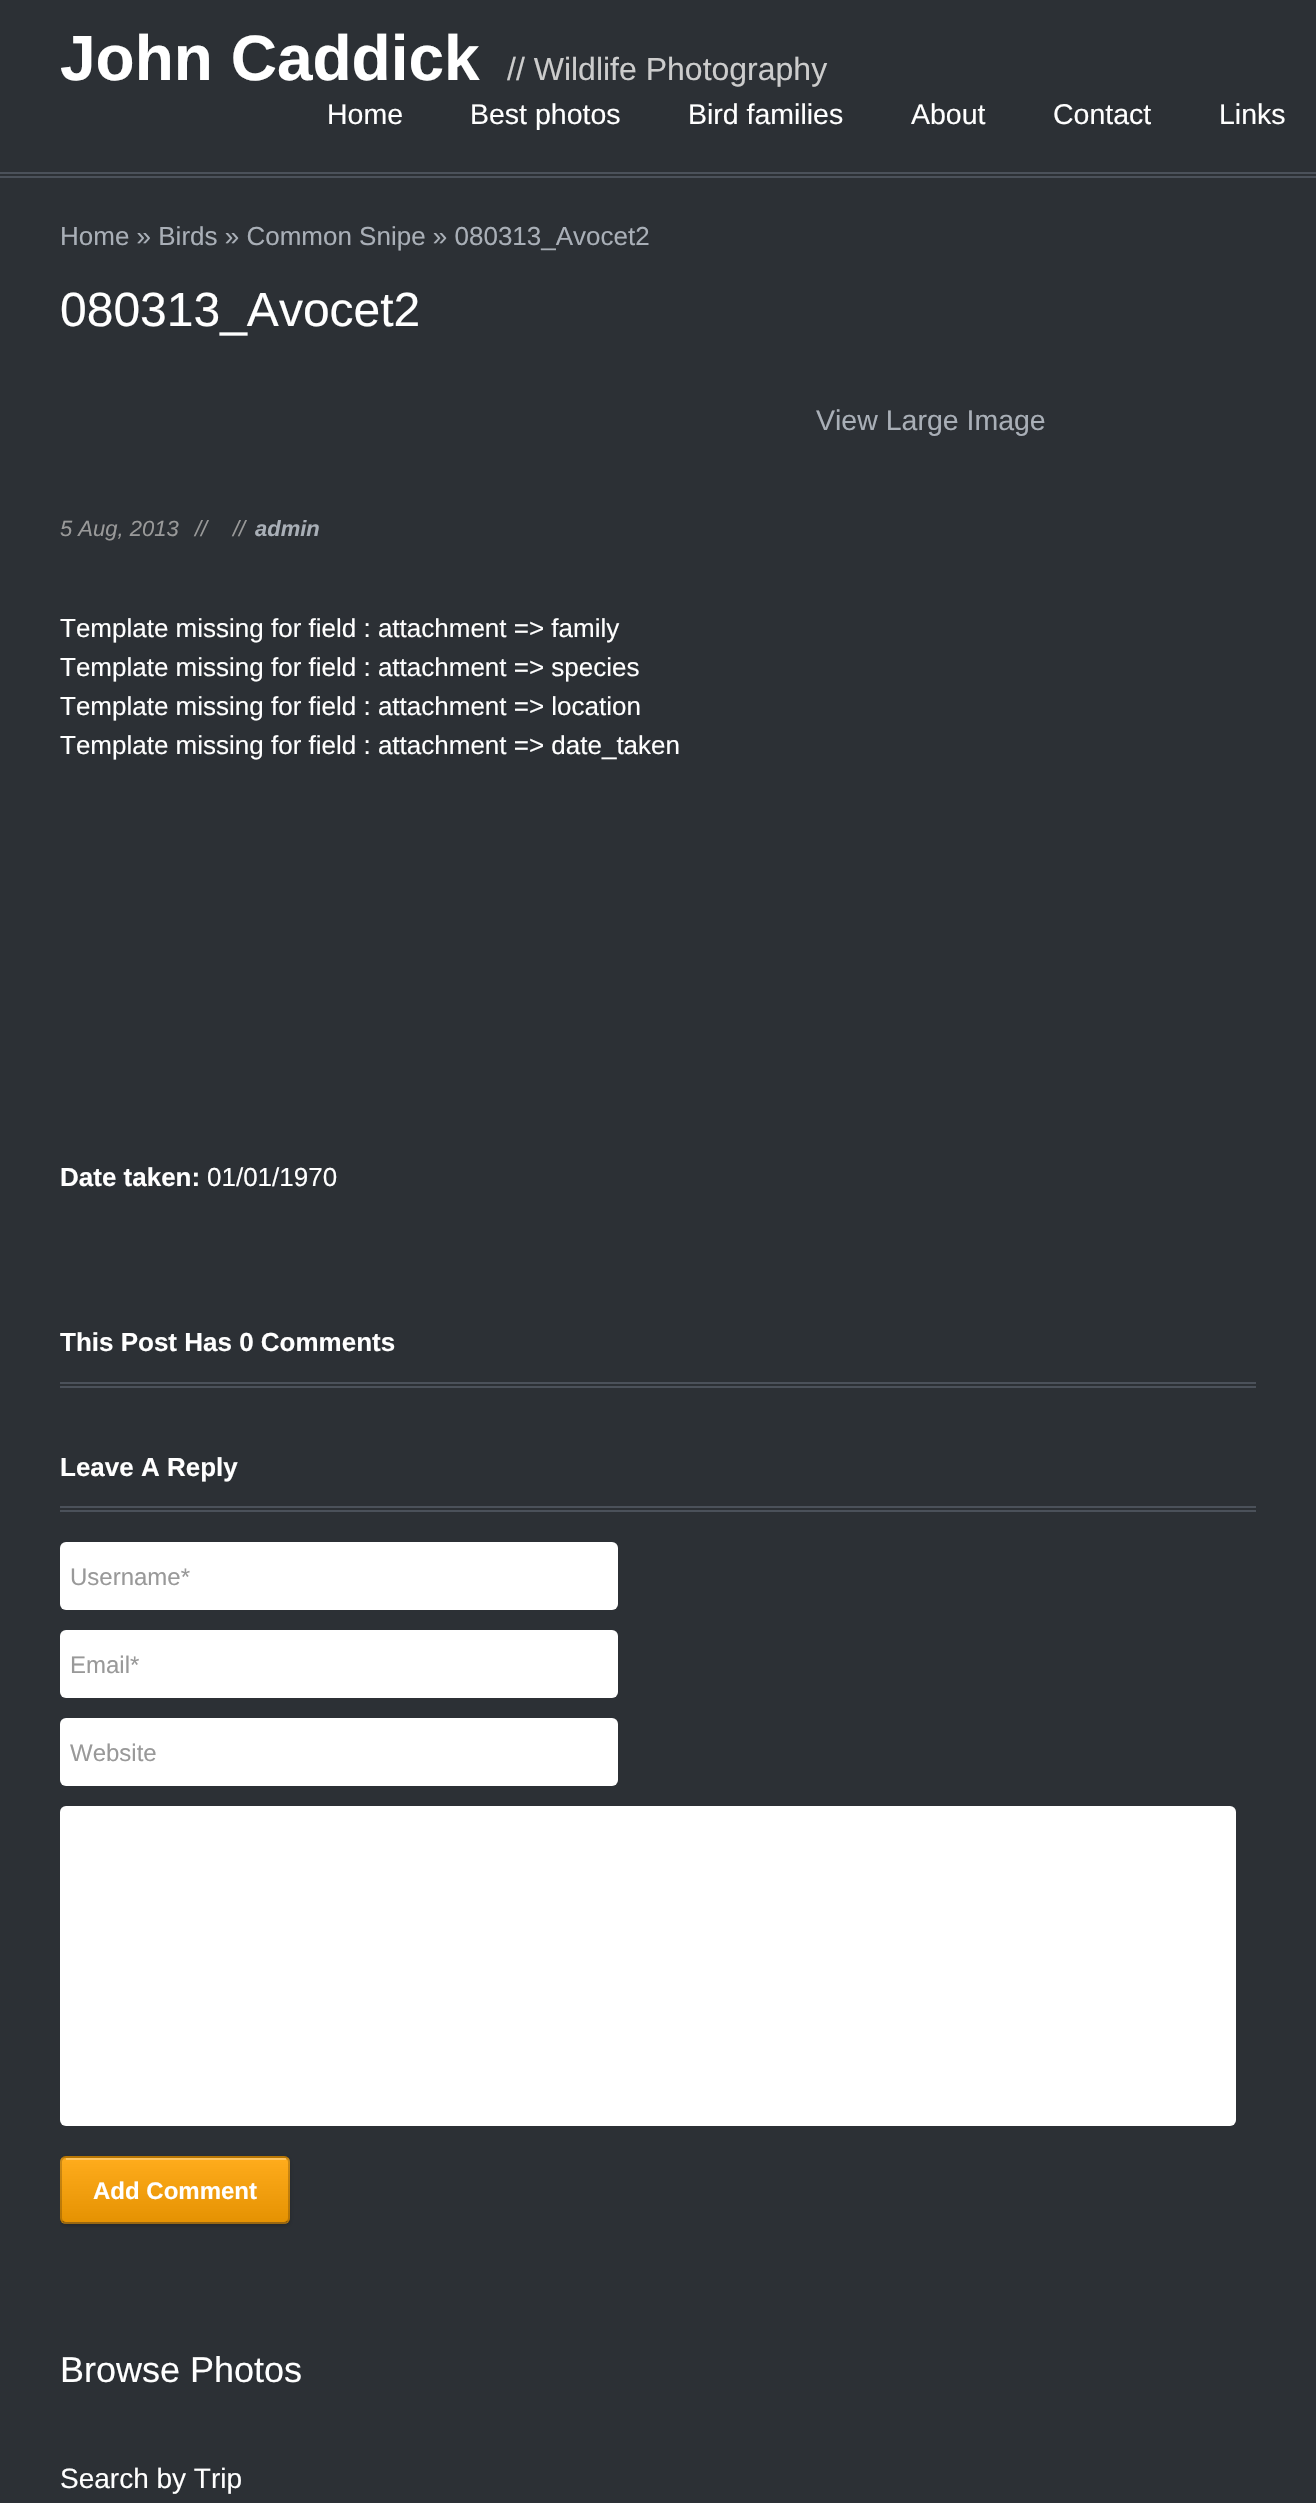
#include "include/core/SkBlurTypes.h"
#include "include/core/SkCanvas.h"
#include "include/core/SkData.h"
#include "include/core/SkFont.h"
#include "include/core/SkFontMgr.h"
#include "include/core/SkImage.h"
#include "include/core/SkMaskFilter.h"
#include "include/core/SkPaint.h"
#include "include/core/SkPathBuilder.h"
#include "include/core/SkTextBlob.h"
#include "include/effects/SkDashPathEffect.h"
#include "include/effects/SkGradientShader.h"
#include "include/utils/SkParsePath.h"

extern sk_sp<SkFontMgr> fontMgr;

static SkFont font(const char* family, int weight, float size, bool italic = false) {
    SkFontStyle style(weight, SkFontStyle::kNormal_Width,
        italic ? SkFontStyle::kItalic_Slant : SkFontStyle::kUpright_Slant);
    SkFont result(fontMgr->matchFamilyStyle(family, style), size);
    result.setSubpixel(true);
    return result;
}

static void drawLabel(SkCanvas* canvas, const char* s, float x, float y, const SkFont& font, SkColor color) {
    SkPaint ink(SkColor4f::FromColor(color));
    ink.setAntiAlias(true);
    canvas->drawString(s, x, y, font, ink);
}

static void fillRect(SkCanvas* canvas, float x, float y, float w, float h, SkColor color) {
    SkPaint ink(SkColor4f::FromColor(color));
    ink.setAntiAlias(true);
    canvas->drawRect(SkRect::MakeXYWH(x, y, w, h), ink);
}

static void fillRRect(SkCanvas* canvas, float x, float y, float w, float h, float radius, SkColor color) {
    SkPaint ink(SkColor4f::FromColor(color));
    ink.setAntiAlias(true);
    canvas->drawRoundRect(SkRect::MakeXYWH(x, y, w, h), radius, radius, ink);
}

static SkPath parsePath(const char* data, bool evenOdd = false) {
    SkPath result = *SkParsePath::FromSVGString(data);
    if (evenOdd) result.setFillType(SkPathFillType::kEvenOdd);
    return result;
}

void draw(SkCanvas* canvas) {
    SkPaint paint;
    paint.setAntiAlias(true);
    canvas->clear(0xFF2C3035);
    fillRect(canvas, 0, 172, 1316, 2, 0xFF4B515A);
    fillRect(canvas, 0, 176, 1316, 2, 0xFF4B515A);
    SkFont font1 = font("Liberation Sans", 700, 64);
    drawLabel(canvas, "John Caddick", 60, 80, font1, 0xFFFFFFFF);
    SkFont font2 = font("Liberation Sans", 400, 32);
    drawLabel(canvas, "// Wildlife Photography", 507, 80, font2, 0xFFCCCCCC);
    SkFont font3 = font("Liberation Sans", 400, 28.5f);
    drawLabel(canvas, "Home", 327, 124, font3, 0xFFFFFFFF);
    drawLabel(canvas, "Best photos", 470, 124, font3, 0xFFFFFFFF);
    drawLabel(canvas, "Bird families", 688, 124, font3, 0xFFFFFFFF);
    drawLabel(canvas, "About", 911, 124, font3, 0xFFFFFFFF);
    drawLabel(canvas, "Contact", 1053, 124, font3, 0xFFFFFFFF);
    drawLabel(canvas, "Links", 1219, 124, font3, 0xFFFFFFFF);
    SkFont font4 = font("Liberation Sans", 400, 26);
    drawLabel(canvas, "Home » Birds » Common Snipe » 080313_Avocet2", 60, 245, font4, 0xFFA9AFB7);
    SkFont font5 = font("Liberation Sans", 400, 48);
    drawLabel(canvas, "080313_Avocet2", 60, 326, font5, 0xFFFFFFFF);
    drawLabel(canvas, "View Large Image", 816, 430, font3, 0xFFA9AFB7);
    SkFont font6 = font("Liberation Sans", 400, 22, true);
    drawLabel(canvas, "5 Aug, 2013", 60, 536, font6, 0xFF999999);
    drawLabel(canvas, "//", 195, 536, font6, 0xFF999999);
    drawLabel(canvas, "//", 233, 536, font6, 0xFF999999);
    SkFont font7 = font("Liberation Sans", 700, 22, true);
    drawLabel(canvas, "admin", 255, 536, font7, 0xFFA9AFB7);
    drawLabel(canvas, "Template missing for field : attachment => family", 60, 637, font4, 0xFFFFFFFF);
    drawLabel(canvas, "Template missing for field : attachment => species", 60, 676, font4, 0xFFFFFFFF);
    drawLabel(canvas, "Template missing for field : attachment => location", 60, 715, font4, 0xFFFFFFFF);
    drawLabel(canvas, "Template missing for field : attachment => date_taken", 60, 754, font4, 0xFFFFFFFF);
    SkFont font8 = font("Liberation Sans", 700, 26);
    drawLabel(canvas, "Date taken:", 60, 1186, font8, 0xFFFFFFFF);
    drawLabel(canvas, "01/01/1970", 207, 1186, font4, 0xFFFFFFFF);
    fillRect(canvas, 60, 1382, 1196, 2, 0xFF4B515A);
    fillRect(canvas, 60, 1386, 1196, 2, 0xFF4B515A);
    drawLabel(canvas, "This Post Has 0 Comments", 60, 1351, font8, 0xFFFFFFFF);
    fillRect(canvas, 60, 1506, 1196, 2, 0xFF4B515A);
    fillRect(canvas, 60, 1510, 1196, 2, 0xFF4B515A);
    drawLabel(canvas, "Leave A Reply", 60, 1476, font8, 0xFFFFFFFF);
    fillRRect(canvas, 60, 1542, 558, 68, 6, 0xFFFFFFFF);
    SkFont font9 = font("Liberation Sans", 400, 24);
    drawLabel(canvas, "Username*", 70, 1585, font9, 0xFF999999);
    fillRRect(canvas, 60, 1630, 558, 68, 6, 0xFFFFFFFF);
    drawLabel(canvas, "Email*", 70, 1673, font9, 0xFF999999);
    fillRRect(canvas, 60, 1718, 558, 68, 6, 0xFFFFFFFF);
    drawLabel(canvas, "Website", 70, 1761, font9, 0xFF999999);
    fillRRect(canvas, 60, 1806, 1176, 320, 6, 0xFFFFFFFF);
    canvas->save();
    canvas->clipRect(SkRect::MakeXYWH(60, 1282, 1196, 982));
    paint.setColor(0x33000000);
    paint.setMaskFilter(SkMaskFilter::MakeBlur(kNormal_SkBlurStyle, 2));
    canvas->drawRoundRect(SkRect::MakeXYWH(60, 2158, 230, 68), 6, 6, paint);
    paint.setMaskFilter(nullptr);
    canvas->restore();
    fillRRect(canvas, 60, 2156, 230, 68, 6, 0xFFFFA302);
    canvas->save();
    canvas->clipPath(parsePath("M66 2156H284C287.5 2156 290 2158.5 290 2162V2218C290 2221.5 287.5 2224 284 2224H66C62.5 2224 60 2221.5 60 2218V2162C60 2158.5 62.5 2156 66 2156Z"), true);
    {
        const SkColor colors[] = {0x1A000000, 0x1AFFFFFF};
        const float stops[] = {0, 1};
        const SkPoint ends[] = {{175, 2158}, {175, 2094}};
        paint.setShader(SkGradientShader::MakeLinear(ends, colors, stops, 2, SkTileMode::kClamp));
        paint.setAlpha(255);
    }
    canvas->drawRect(SkRect::MakeXYWH(60, 2156, 230, 2), paint);
    {
        const SkColor colors[] = {0x1A000000, 0x1AFFFFFF};
        const float stops[] = {0, 1};
        const SkPoint ends[] = {{175, 2222}, {175, 2158}};
        paint.setShader(SkGradientShader::MakeLinear(ends, colors, stops, 2, SkTileMode::kClamp));
        paint.setAlpha(255);
    }
    canvas->drawRect(SkRect::MakeXYWH(60, 2158, 230, 64), paint);
    {
        const SkColor colors[] = {0x1A000000, 0x1AFFFFFF};
        const float stops[] = {0, 1};
        const SkPoint ends[] = {{175, 2286}, {175, 2222}};
        paint.setShader(SkGradientShader::MakeLinear(ends, colors, stops, 2, SkTileMode::kClamp));
        paint.setAlpha(255);
    }
    canvas->drawRect(SkRect::MakeXYWH(60, 2222, 230, 2), paint);
    canvas->restore();
    paint.setStroke(true);
    paint.setStrokeWidth(2);
    paint.setShader(nullptr);
    paint.setColor(0x66000000);
    canvas->drawPath(parsePath("M287.5 2221.5C286.5 2222.5 285.5 2223 284 2223H66C64.5 2223 63.5 2222.5 62.5 2221.5"), paint);
    paint.setColor(0x33000000);
    canvas->drawPath(parsePath("M62.5 2221.5C61.5 2220.5 61 2219.5 61 2218V2162C61 2160.5 61.5 2159.5 62.5 2158.5C63.5 2157.5 64.5 2157 66 2157H284C285.5 2157 286.5 2157.5 287.5 2158.5C288.5 2159.5 289 2160.5 289 2162V2218C289 2219.5 288.5 2220.5 287.5 2221.5"), paint);
    fillRect(canvas, 66, 2158, 220, 2, 0x4DFFFFFF);
    SkFont font10 = font("Liberation Sans", 700, 24);
    drawLabel(canvas, "Add Comment", 93, 2199, font10, 0xFFFFFFFF);
    SkFont font11 = font("Liberation Sans", 400, 36);
    drawLabel(canvas, "Browse Photos", 60, 2382, font11, 0xFFFFFFFF);
    SkFont font12 = font("Liberation Sans", 400, 28);
    drawLabel(canvas, "Search by Trip", 60, 2488, font12, 0xFFFFFFFF);
}
